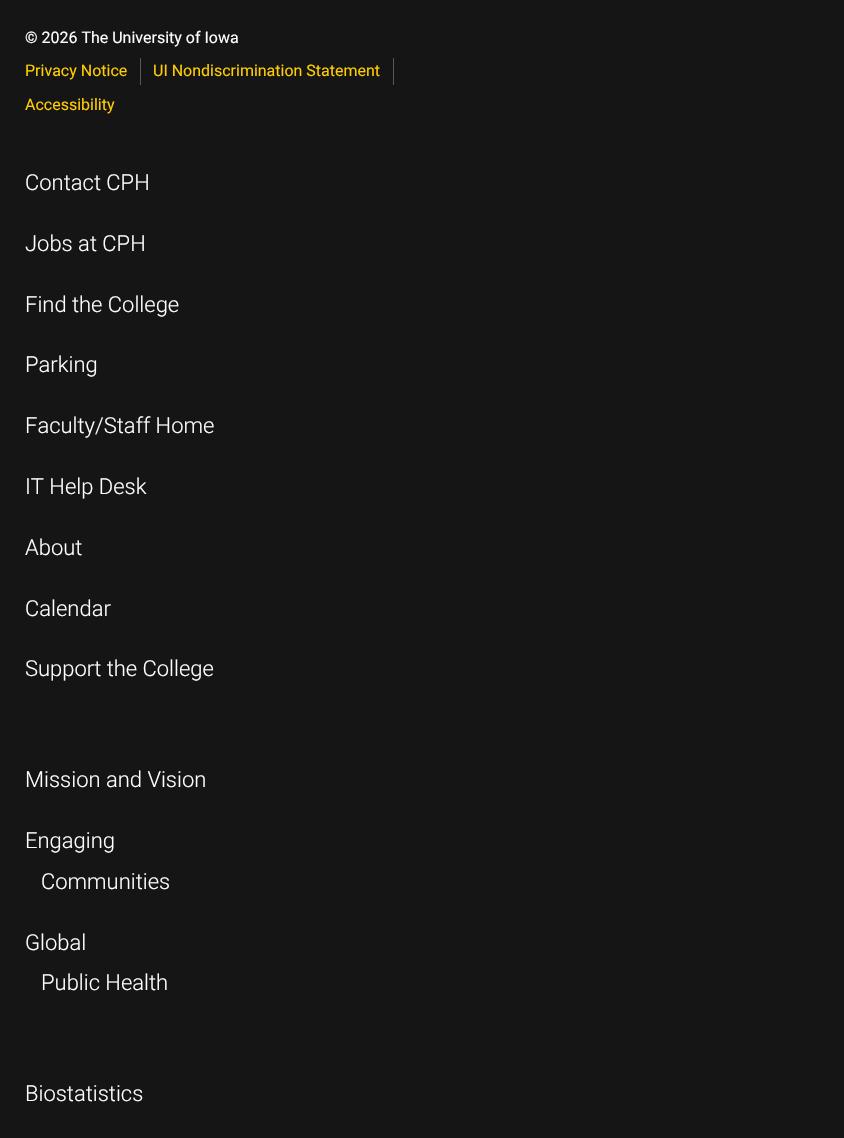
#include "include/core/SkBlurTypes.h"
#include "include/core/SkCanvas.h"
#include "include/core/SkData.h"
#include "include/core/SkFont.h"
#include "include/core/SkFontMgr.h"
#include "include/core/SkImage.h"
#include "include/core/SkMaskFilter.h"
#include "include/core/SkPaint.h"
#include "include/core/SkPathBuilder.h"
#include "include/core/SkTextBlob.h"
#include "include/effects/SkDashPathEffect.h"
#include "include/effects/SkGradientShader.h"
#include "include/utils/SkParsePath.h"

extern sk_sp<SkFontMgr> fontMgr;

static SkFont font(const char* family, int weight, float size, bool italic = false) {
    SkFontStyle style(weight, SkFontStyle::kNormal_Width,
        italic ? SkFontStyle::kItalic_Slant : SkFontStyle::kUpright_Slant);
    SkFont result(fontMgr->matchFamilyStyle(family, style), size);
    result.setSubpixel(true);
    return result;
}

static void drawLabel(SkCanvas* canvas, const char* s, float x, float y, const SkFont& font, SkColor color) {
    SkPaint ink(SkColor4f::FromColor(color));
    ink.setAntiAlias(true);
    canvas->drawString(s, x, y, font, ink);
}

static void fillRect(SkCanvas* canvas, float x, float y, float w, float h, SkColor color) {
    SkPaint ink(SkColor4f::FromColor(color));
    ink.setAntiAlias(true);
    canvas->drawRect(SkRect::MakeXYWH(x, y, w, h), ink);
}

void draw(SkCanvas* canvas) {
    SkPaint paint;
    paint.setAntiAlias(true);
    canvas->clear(0xFF151515);
    SkFont font1 = font("Roboto", 400, 16);
    drawLabel(canvas, "© 2026 The University of Iowa", 25, 43, font1, 0xFFFFFFFF);
    fillRect(canvas, 140, 58, 1, 27, 0xFF5D5656);
    drawLabel(canvas, "Privacy Notice", 25, 76, font1, 0xFFFFCD00);
    fillRect(canvas, 393, 58, 1, 27, 0xFF5D5656);
    drawLabel(canvas, "UI Nondiscrimination Statement", 153, 76, font1, 0xFFFFCD00);
    drawLabel(canvas, "Accessibility", 25, 110, font1, 0xFFFFCD00);
    SkFont font2 = font("Roboto", 300, 22);
    drawLabel(canvas, "Contact CPH", 25, 190, font2, 0xFFFFFFFF);
    drawLabel(canvas, "Jobs at CPH", 25, 251, font2, 0xFFFFFFFF);
    drawLabel(canvas, "Find the College", 25, 312, font2, 0xFFFFFFFF);
    drawLabel(canvas, "Parking", 25, 372, font2, 0xFFFFFFFF);
    drawLabel(canvas, "Faculty/Staff Home", 25, 433, font2, 0xFFFFFFFF);
    drawLabel(canvas, "IT Help Desk", 25, 494, font2, 0xFFFFFFFF);
    drawLabel(canvas, "About", 25, 555, font2, 0xFFFFFFFF);
    drawLabel(canvas, "Calendar", 25, 616, font2, 0xFFFFFFFF);
    drawLabel(canvas, "Support the College", 25, 676, font2, 0xFFFFFFFF);
    drawLabel(canvas, "Mission and Vision", 25, 787, font2, 0xFFFFFFFF);
    drawLabel(canvas, "Engaging", 25, 848, font2, 0xFFFFFFFF);
    drawLabel(canvas, "Communities", 41, 889, font2, 0xFFFFFFFF);
    drawLabel(canvas, "Global", 25, 950, font2, 0xFFFFFFFF);
    drawLabel(canvas, "Public Health", 41, 990, font2, 0xFFFFFFFF);
    drawLabel(canvas, "Biostatistics", 25, 1101, font2, 0xFFFFFFFF);
}
